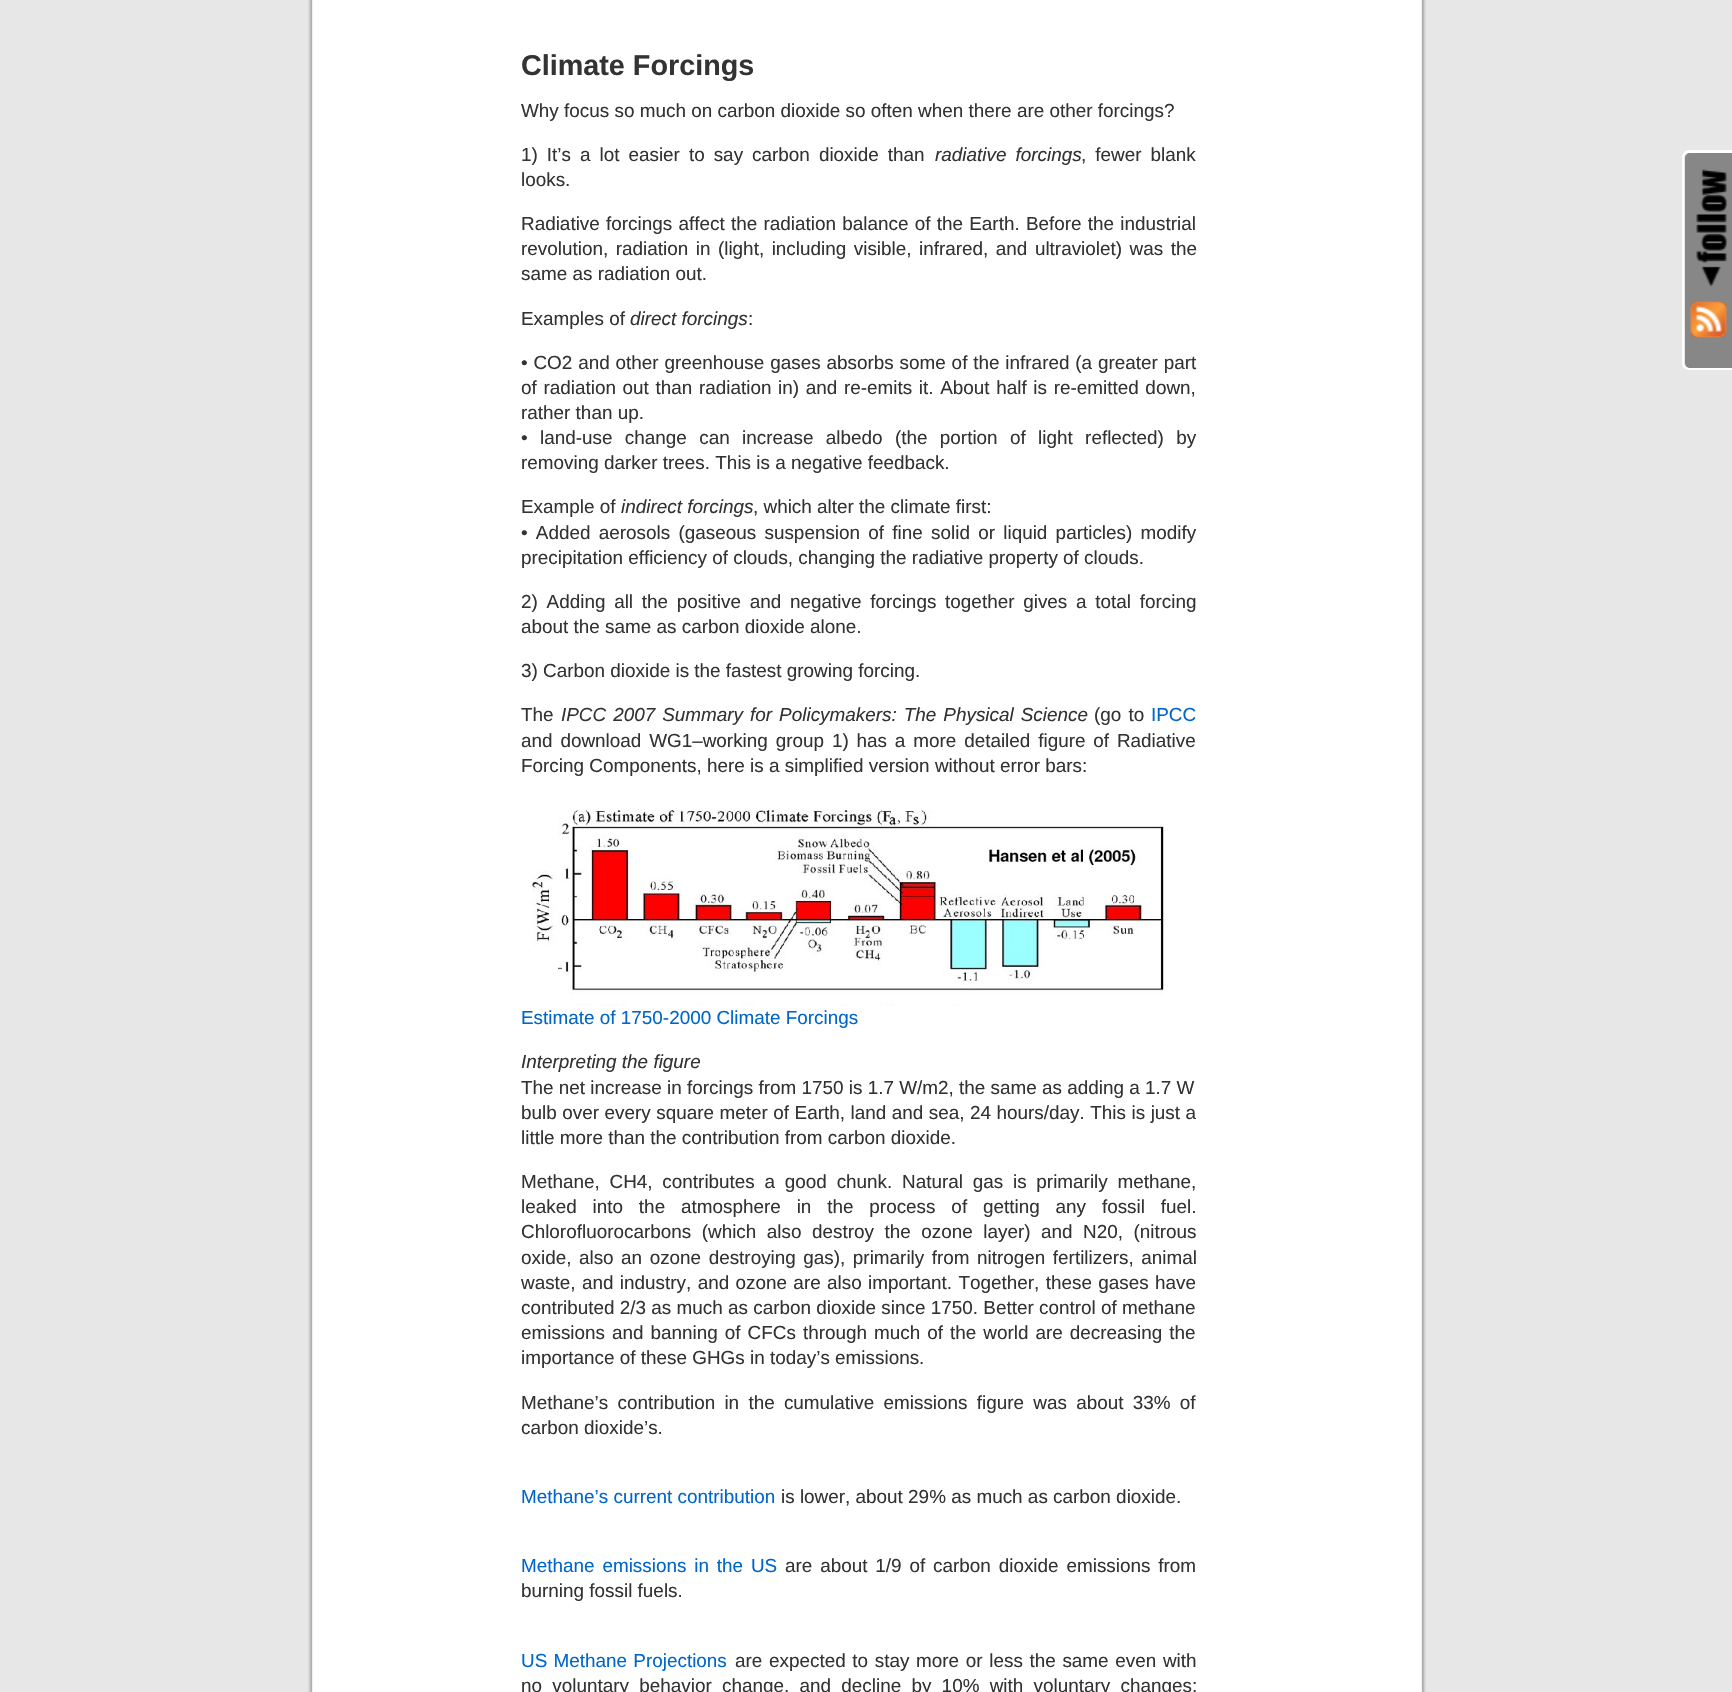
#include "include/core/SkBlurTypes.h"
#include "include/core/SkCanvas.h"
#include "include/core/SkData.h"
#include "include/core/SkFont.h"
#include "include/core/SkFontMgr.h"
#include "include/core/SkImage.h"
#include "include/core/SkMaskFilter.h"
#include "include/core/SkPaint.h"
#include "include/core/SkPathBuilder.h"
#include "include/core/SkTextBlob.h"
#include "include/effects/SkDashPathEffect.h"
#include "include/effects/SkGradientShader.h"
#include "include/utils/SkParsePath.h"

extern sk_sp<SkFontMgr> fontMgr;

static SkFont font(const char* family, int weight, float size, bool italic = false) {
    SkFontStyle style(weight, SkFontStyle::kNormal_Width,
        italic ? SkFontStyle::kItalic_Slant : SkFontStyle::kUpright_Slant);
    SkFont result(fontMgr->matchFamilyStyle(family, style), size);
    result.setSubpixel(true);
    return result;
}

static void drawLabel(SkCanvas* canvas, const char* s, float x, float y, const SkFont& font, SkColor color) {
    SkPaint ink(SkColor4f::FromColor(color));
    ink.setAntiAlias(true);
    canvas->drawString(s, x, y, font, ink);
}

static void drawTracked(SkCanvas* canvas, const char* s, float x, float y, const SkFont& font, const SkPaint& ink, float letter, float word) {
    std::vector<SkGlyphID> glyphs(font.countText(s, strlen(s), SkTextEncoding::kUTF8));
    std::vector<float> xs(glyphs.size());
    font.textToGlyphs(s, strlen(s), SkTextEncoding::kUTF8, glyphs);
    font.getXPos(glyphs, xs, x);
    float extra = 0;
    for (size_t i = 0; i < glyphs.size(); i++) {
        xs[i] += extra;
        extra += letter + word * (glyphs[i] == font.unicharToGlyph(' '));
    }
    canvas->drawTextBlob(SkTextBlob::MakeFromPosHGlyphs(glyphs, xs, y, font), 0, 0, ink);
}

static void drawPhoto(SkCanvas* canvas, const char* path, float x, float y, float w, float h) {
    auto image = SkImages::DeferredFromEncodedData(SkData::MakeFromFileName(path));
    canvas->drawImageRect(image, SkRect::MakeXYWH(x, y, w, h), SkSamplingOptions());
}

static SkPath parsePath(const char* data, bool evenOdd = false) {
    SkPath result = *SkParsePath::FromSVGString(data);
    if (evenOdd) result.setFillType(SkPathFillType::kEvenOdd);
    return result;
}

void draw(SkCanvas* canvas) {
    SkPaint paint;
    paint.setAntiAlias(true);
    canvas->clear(0xFFE7E7E7);
    drawPhoto(canvas, "assets/img1.png", 308, 0, 1118, 1692);
    SkFont font1 = font("Liberation Sans", 700, 28.75f);
    drawLabel(canvas, "Climate Forcings", 521, 75, font1, 0xFF333333);
    SkFont font2 = font("Liberation Sans", 400, 18.9f);
    drawLabel(canvas, "Why focus so much on carbon dioxide so often when there are other forcings?", 521, 117, font2, 0xFF333333);
    paint.setColor(0xFF333333);
    drawTracked(canvas, "1) It’s a lot easier to say carbon dioxide than", 521, 161, font2, paint, 0, 3.75f);
    SkFont font3 = font("Liberation Sans", 400, 18.9f, true);
    drawTracked(canvas, "radiative forcings", 935, 161, font3, paint, 0, 3.75f);
    drawTracked(canvas, ", fewer blank", 1081, 161, font2, paint, 0, 3.75f);
    drawLabel(canvas, "looks.", 521, 186, font2, 0xFF333333);
    drawTracked(canvas, "Radiative forcings affect the radiation balance of the Earth. Before the industrial", 521, 230, font2, paint, 0, 1);
    drawTracked(canvas, "revolution, radiation in (light, including visible, infrared, and ultraviolet) was the", 521, 255, font2, paint, 0, 2.25f);
    drawLabel(canvas, "same as radiation out.", 521, 280, font2, 0xFF333333);
    drawLabel(canvas, "Examples of", 521, 325, font2, 0xFF333333);
    drawLabel(canvas, "direct forcings", 630, 325, font3, 0xFF333333);
    drawLabel(canvas, ":", 748, 325, font2, 0xFF333333);
    drawTracked(canvas, "• CO2 and other greenhouse gases absorbs some of the infrared (a greater part", 521, 369, font2, paint, 0, 0.6f);
    drawTracked(canvas, "of radiation out than radiation in) and re-emits it. About half is re-emitted down,", 521, 394, font2, paint, 0, 1.4f);
    drawLabel(canvas, "rather than up.", 521, 419, font2, 0xFF333333);
    drawTracked(canvas, "• land-use change can increase albedo (the portion of light reflected) by", 521, 444, font2, paint, 0, 7.1f);
    drawLabel(canvas, "removing darker trees. This is a negative feedback.", 521, 469, font2, 0xFF333333);
    drawLabel(canvas, "Example of", 521, 513, font2, 0xFF333333);
    drawLabel(canvas, "indirect forcings", 621, 513, font3, 0xFF333333);
    drawLabel(canvas, ", which alter the climate first:", 753, 513, font2, 0xFF333333);
    drawTracked(canvas, "• Added aerosols (gaseous suspension of fine solid or liquid particles) modify", 521, 539, font2, paint, 0, 3);
    drawLabel(canvas, "precipitation efficiency of clouds, changing the radiative property of clouds.", 521, 564, font2, 0xFF333333);
    drawTracked(canvas, "2) Adding all the positive and negative forcings together gives a total forcing", 521, 608, font2, paint, 0, 3.5f);
    drawLabel(canvas, "about the same as carbon dioxide alone.", 521, 633, font2, 0xFF333333);
    drawLabel(canvas, "3) Carbon dioxide is the fastest growing forcing.", 521, 677, font2, 0xFF333333);
    drawLabel(canvas, "The", 521, 721, font2, 0xFF333333);
    drawTracked(canvas, "IPCC 2007 Summary for Policymakers: The Physical Science", 561, 721, font3, paint, 0, 1.75f);
    drawTracked(canvas, "(go to", 1094, 721, font2, paint, 0, 2);
    drawLabel(canvas, "IPCC", 1151, 721, font2, 0xFF0066CC);
    drawTracked(canvas, "and download WG1–working group 1) has a more detailed figure of Radiative", 521, 747, font2, paint, 0, 2.6f);
    drawLabel(canvas, "Forcing Components, here is a simplified version without error bars:", 521, 772, font2, 0xFF333333);
    drawPhoto(canvas, "assets/img2.png", 532, 810, 632, 196);
    drawLabel(canvas, "Estimate of 1750-2000 Climate Forcings", 521, 1024, font2, 0xFF0066CC);
    drawLabel(canvas, "Interpreting the figure", 521, 1068, font3, 0xFF333333);
    drawLabel(canvas, "The net increase in forcings from 1750 is 1.7 W/m2, the same as adding a 1.7 W", 521, 1094, font2, 0xFF333333);
    drawTracked(canvas, "bulb over every square meter of Earth, land and sea, 24 hours/day. This is just a", 521, 1119, font2, paint, 0, 0.25f);
    drawLabel(canvas, "little more than the contribution from carbon dioxide.", 521, 1144, font2, 0xFF333333);
    drawTracked(canvas, "Methane, CH4, contributes a good chunk. Natural gas is primarily methane,", 521, 1188, font2, paint, 0, 4.5f);
    drawTracked(canvas, "leaked into the atmosphere in the process of getting any fossil fuel.", 521, 1213, font2, paint, 0, 10.6f);
    drawTracked(canvas, "Chlorofluorocarbons (which also destroy the ozone layer) and N20, (nitrous", 521, 1238, font2, paint, 0, 5.25f);
    drawTracked(canvas, "oxide, also an ozone destroying gas), primarily from nitrogen fertilizers, animal", 521, 1264, font2, paint, 0, 2.25f);
    drawTracked(canvas, "waste, and industry, and ozone are also important. Together, these gases have", 521, 1289, font2, paint, 0, 1.1f);
    drawLabel(canvas, "contributed 2/3 as much as carbon dioxide since 1750. Better control of methane", 521, 1314, font2, 0xFF333333);
    drawTracked(canvas, "emissions and banning of CFCs through much of the world are decreasing the", 521, 1339, font2, paint, 0, 1.75f);
    drawLabel(canvas, "importance of these GHGs in today’s emissions.", 521, 1364, font2, 0xFF333333);
    drawTracked(canvas, "Methane’s contribution in the cumulative emissions figure was about 33% of", 521, 1409, font2, paint, 0, 4);
    drawLabel(canvas, "carbon dioxide’s.", 521, 1434, font2, 0xFF333333);
    drawLabel(canvas, "Methane’s current contribution", 521, 1503, font2, 0xFF0066CC);
    drawLabel(canvas, "is lower, about 29% as much as carbon dioxide.", 781, 1503, font2, 0xFF333333);
    paint.setColor(0xFF0066CC);
    drawTracked(canvas, "Methane emissions in the US", 521, 1572, font2, paint, 0, 2.6f);
    paint.setColor(0xFF333333);
    drawTracked(canvas, "are about 1/9 of carbon dioxide emissions from", 785, 1572, font2, paint, 0, 2.6f);
    drawLabel(canvas, "burning fossil fuels.", 521, 1597, font2, 0xFF333333);
    paint.setColor(0xFF0066CC);
    drawTracked(canvas, "US Methane Projections", 521, 1667, font2, paint, 0, 1);
    paint.setColor(0xFF333333);
    drawTracked(canvas, "are expected to stay more or less the same even with", 735, 1667, font2, paint, 0, 1.4f);
    drawTracked(canvas, "no voluntary behavior change, and decline by 10% with voluntary changes;", 521, 1692, font2, paint, 0, 5);
    paint.setColor(0xFF878787);
    canvas->drawPath(parsePath("M1690 153H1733V368H1690C1687 368 1685 366 1685 363V158C1685 155 1687 153 1690 153Z"), paint);
    paint.setColor(0xFFFFFFFF);
    canvas->drawPath(parsePath("M1689 150H1732V370H1689C1685 370 1682 367 1682 363V158C1682 153 1685 150 1689 150ZM1689 153H1732V368H1689C1687 368 1684 365 1684 363V158C1684 155 1687 153 1689 153Z", true), paint);
    drawPhoto(canvas, "assets/img3.png", 1696, 169, 31, 118);
    drawPhoto(canvas, "assets/img4.png", 1690, 301, 37, 37);
}
